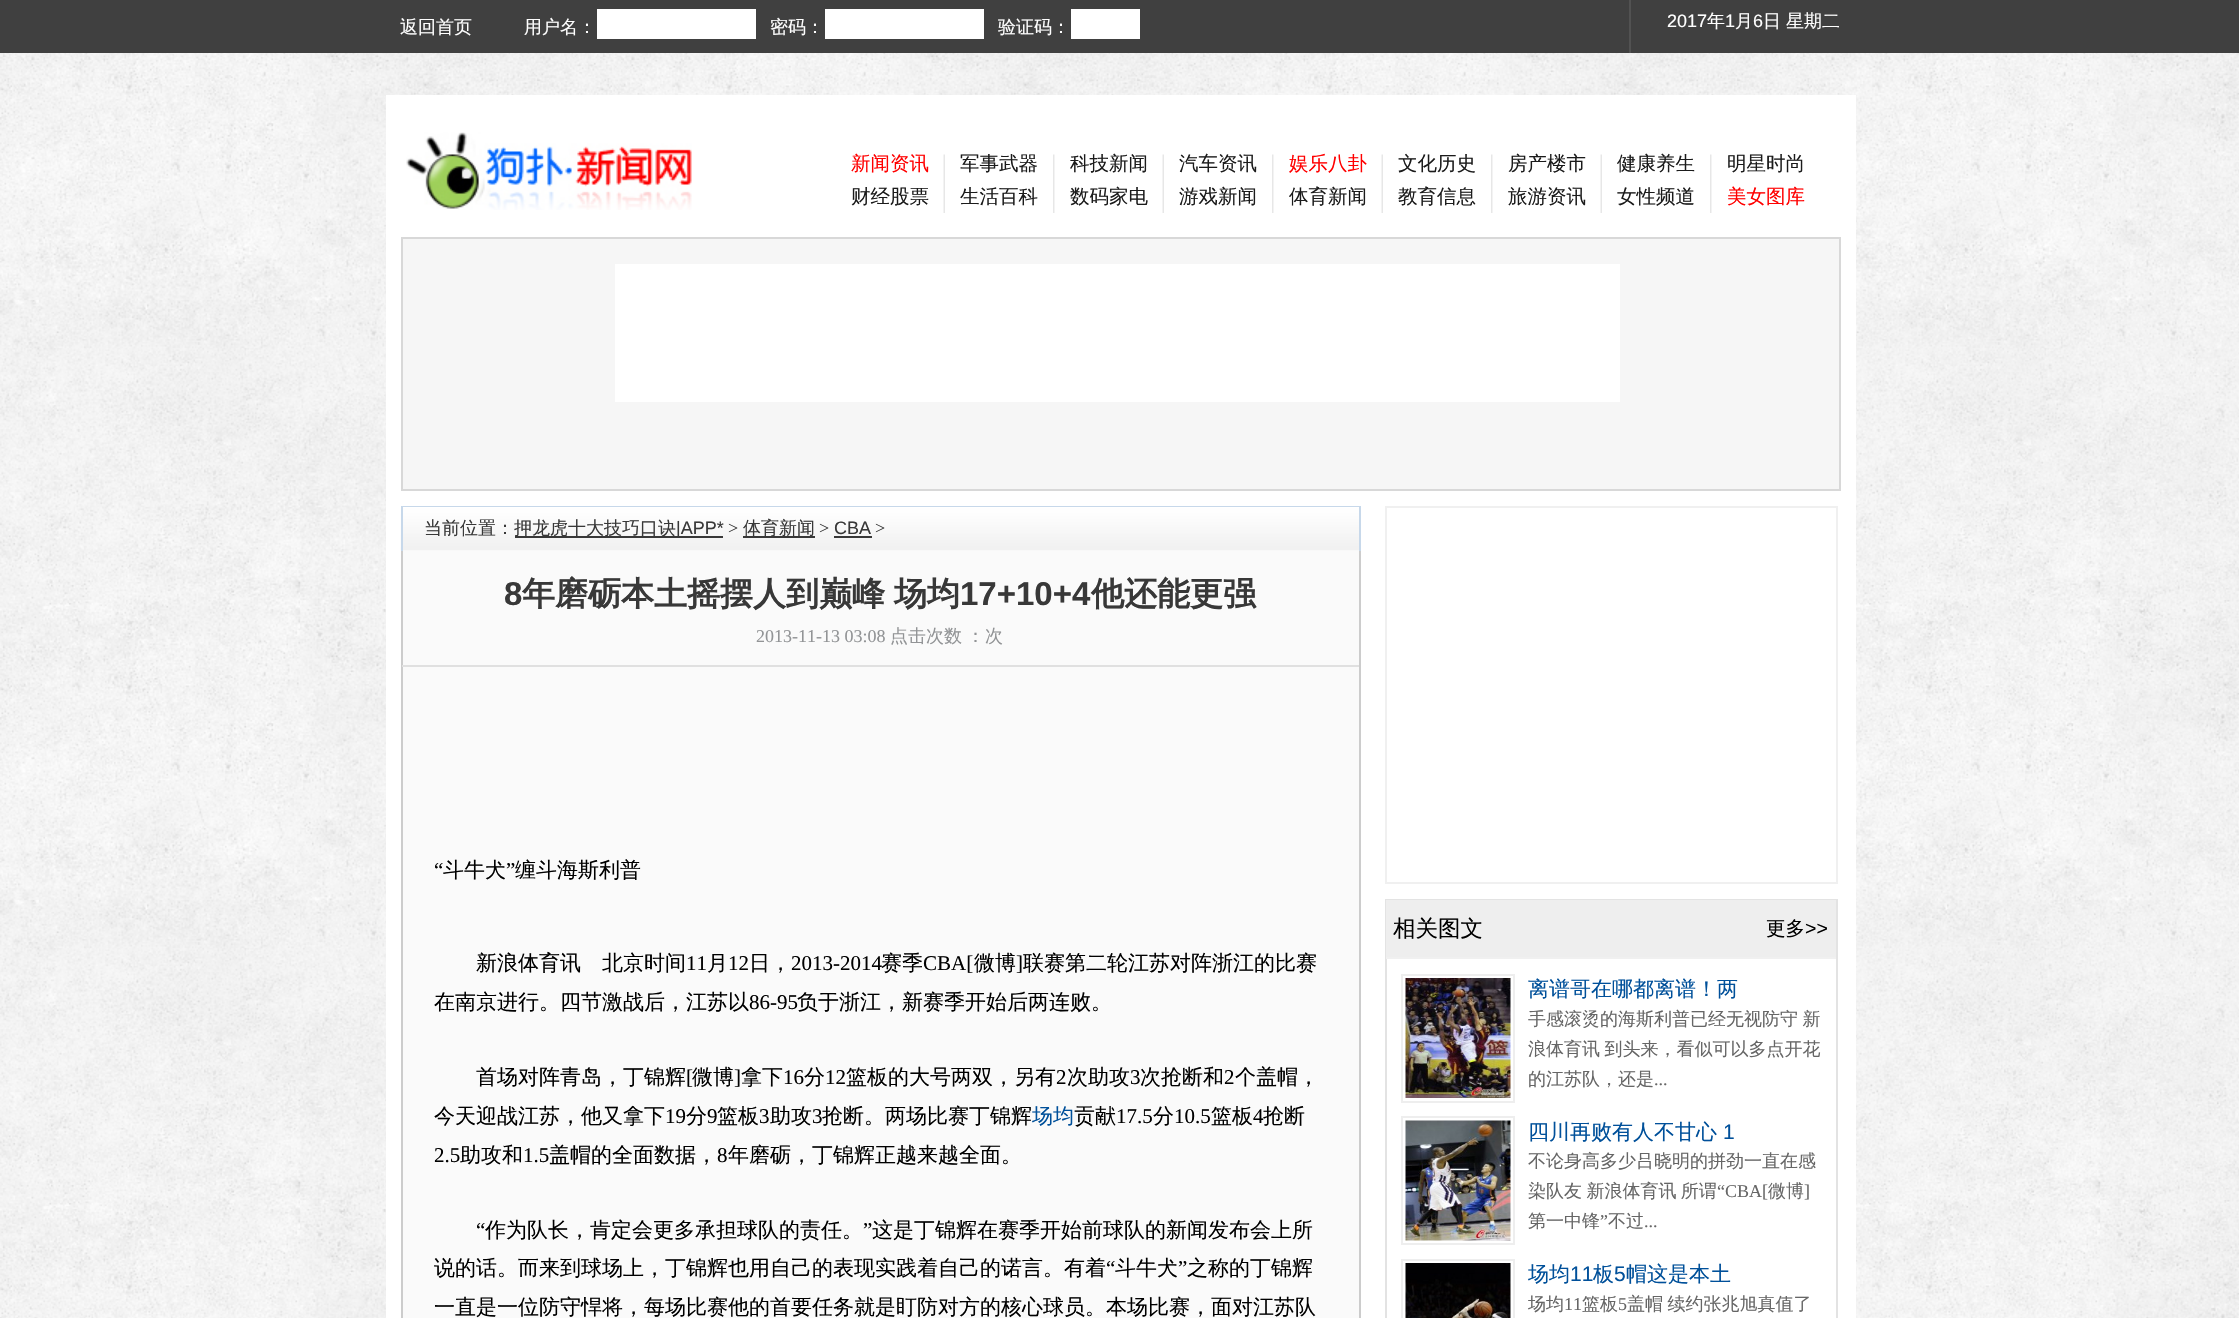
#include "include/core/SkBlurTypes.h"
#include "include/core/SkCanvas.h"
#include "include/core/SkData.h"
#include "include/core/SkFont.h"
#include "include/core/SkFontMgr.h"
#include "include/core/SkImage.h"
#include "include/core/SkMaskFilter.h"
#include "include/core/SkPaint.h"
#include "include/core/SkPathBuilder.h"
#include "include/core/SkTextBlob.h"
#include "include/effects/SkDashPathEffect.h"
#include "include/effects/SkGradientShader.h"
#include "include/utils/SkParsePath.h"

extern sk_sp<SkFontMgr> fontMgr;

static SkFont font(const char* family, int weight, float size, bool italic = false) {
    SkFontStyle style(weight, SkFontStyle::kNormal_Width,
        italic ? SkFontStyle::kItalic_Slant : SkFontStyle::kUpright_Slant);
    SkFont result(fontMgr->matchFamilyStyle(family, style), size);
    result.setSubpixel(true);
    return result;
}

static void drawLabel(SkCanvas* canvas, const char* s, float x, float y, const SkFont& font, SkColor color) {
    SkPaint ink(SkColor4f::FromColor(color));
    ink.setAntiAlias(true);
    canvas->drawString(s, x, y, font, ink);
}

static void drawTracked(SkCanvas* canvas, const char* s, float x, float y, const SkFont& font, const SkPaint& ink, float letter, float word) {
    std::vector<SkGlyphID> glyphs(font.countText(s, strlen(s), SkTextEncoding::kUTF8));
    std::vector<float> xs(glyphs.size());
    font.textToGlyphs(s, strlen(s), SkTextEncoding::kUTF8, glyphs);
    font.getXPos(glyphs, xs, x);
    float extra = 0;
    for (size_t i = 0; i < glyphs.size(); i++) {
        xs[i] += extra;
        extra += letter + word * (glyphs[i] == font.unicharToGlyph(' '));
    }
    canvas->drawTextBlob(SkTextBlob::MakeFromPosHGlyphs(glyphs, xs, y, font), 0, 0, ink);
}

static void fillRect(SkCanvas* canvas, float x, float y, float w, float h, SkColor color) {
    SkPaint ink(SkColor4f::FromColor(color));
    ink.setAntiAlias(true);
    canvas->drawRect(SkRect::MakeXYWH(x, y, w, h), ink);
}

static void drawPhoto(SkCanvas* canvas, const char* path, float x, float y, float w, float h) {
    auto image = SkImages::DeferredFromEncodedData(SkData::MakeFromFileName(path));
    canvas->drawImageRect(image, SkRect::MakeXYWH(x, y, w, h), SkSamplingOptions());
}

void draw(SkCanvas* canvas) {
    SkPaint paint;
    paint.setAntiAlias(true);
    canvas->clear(0xFFFFFFFF);
    drawPhoto(canvas, "assets/img1.png", 0, 53, 2239, 1265);
    fillRect(canvas, 0, 0, 2239, 53, 0xFF404040);
    SkFont font1 = font("WenQuanYi Zen Hei", 500, 18);
    drawLabel(canvas, "返回首页", 400, 33, font1, 0xFFFFFFFF);
    drawLabel(canvas, "用户名：", 524, 33, font1, 0xFFFFFFFF);
    fillRect(canvas, 597, 9, 159, 30, 0xFFFFFFFF);
    drawLabel(canvas, "密码：", 770, 33, font1, 0xFFFFFFFF);
    fillRect(canvas, 825, 9, 159, 30, 0xFFFFFFFF);
    drawLabel(canvas, "验证码：", 998, 33, font1, 0xFFFFFFFF);
    fillRect(canvas, 1071, 9, 69, 30, 0xFFFFFFFF);
    fillRect(canvas, 1629, 0, 2, 53, 0xFF525252);
    SkFont font2 = font("Liberation Sans", 400, 18);
    drawLabel(canvas, "2017", 1667, 27, font2, 0xFFFFFFFF);
    drawLabel(canvas, "年", 1707, 27, font1, 0xFFFFFFFF);
    drawLabel(canvas, "1", 1725, 27, font2, 0xFFFFFFFF);
    drawLabel(canvas, "月", 1735, 27, font1, 0xFFFFFFFF);
    drawLabel(canvas, "6", 1753, 27, font2, 0xFFFFFFFF);
    drawLabel(canvas, "日", 1763, 27, font1, 0xFFFFFFFF);
    drawLabel(canvas, "星期二", 1786, 27, font1, 0xFFFFFFFF);
    fillRect(canvas, 386, 95, 1470, 1223, 0xFFFFFFFF);
    drawPhoto(canvas, "assets/img2.png", 406, 132, 286, 78);
    drawPhoto(canvas, "assets/img3.png", 943, 154, 2, 59);
    SkFont font3 = font("WenQuanYi Zen Hei", 500, 19.5f);
    drawLabel(canvas, "新闻资讯", 851, 170, font3, 0xFFFF0000);
    drawLabel(canvas, "财经股票", 851, 203, font3, 0xFF1B1B1B);
    drawPhoto(canvas, "assets/img4.png", 1053, 154, 2, 59);
    drawLabel(canvas, "军事武器", 960, 170, font3, 0xFF1B1B1B);
    drawLabel(canvas, "生活百科", 960, 203, font3, 0xFF1B1B1B);
    drawPhoto(canvas, "assets/img3.png", 1162, 154, 2, 59);
    drawLabel(canvas, "科技新闻", 1070, 170, font3, 0xFF1B1B1B);
    drawLabel(canvas, "数码家电", 1070, 203, font3, 0xFF1B1B1B);
    drawPhoto(canvas, "assets/img4.png", 1272, 154, 2, 59);
    drawLabel(canvas, "汽车资讯", 1179, 170, font3, 0xFF1B1B1B);
    drawLabel(canvas, "游戏新闻", 1179, 203, font3, 0xFF1B1B1B);
    drawPhoto(canvas, "assets/img3.png", 1381, 154, 2, 59);
    drawLabel(canvas, "娱乐八卦", 1289, 170, font3, 0xFFFF0000);
    drawLabel(canvas, "体育新闻", 1289, 203, font3, 0xFF1B1B1B);
    drawPhoto(canvas, "assets/img4.png", 1491, 154, 2, 59);
    drawLabel(canvas, "文化历史", 1398, 170, font3, 0xFF1B1B1B);
    drawLabel(canvas, "教育信息", 1398, 203, font3, 0xFF1B1B1B);
    drawPhoto(canvas, "assets/img3.png", 1600, 154, 2, 59);
    drawLabel(canvas, "房产楼市", 1508, 170, font3, 0xFF1B1B1B);
    drawLabel(canvas, "旅游资讯", 1508, 203, font3, 0xFF1B1B1B);
    drawPhoto(canvas, "assets/img4.png", 1710, 154, 2, 59);
    drawLabel(canvas, "健康养生", 1617, 170, font3, 0xFF1B1B1B);
    drawLabel(canvas, "女性频道", 1617, 203, font3, 0xFF1B1B1B);
    drawLabel(canvas, "明星时尚", 1727, 170, font3, 0xFF1B1B1B);
    drawLabel(canvas, "美女图库", 1727, 203, font3, 0xFFFF0000);
    paint.setColor(0xFFF6F6F6);
    canvas->drawRect(SkRect::MakeXYWH(402, 238, 1438, 252), paint);
    paint.setStroke(true);
    paint.setStrokeWidth(2);
    paint.setColor(0xFFD8D8D8);
    canvas->drawRect(SkRect::MakeXYWH(402, 238, 1438, 252), paint);
    fillRect(canvas, 615, 264, 1005, 138, 0xFFFFFFFF);
    fillRect(canvas, 401, 506, 960, 1, 0xFFC7D8EA);
    drawPhoto(canvas, "assets/img5.png", 400, 507, 959, 44);
    fillRect(canvas, 1359, 507, 2, 44, 0xFFC7D8EA);
    fillRect(canvas, 401, 507, 2, 44, 0xFFC7D8EA);
    drawLabel(canvas, "当前位置：", 424, 534, font1, 0xFF383838);
    fillRect(canvas, 515, 536, 208, 2, 0xFF383838);
    drawLabel(canvas, "押龙虎十大技巧口诀", 514, 534, font1, 0xFF383838);
    drawLabel(canvas, "|APP*", 676, 534, font2, 0xFF383838);
    SkFont font4 = font("Liberation Serif", 400, 18);
    drawLabel(canvas, ">", 728, 534, font4, 0xFF383838);
    fillRect(canvas, 743, 536, 72, 2, 0xFF383838);
    drawLabel(canvas, "体育新闻", 743, 534, font1, 0xFF383838);
    drawLabel(canvas, ">", 819, 534, font4, 0xFF383838);
    drawLabel(canvas, "CBA", 834, 534, font2, 0xFF383838);
    fillRect(canvas, 834, 536, 38, 2, 0xFF383838);
    drawLabel(canvas, ">", 875, 534, font4, 0xFF383838);
    fillRect(canvas, 403, 551, 956, 767, 0xFFFAFAFA);
    fillRect(canvas, 1359, 551, 2, 767, 0xFFCCCCCC);
    fillRect(canvas, 401, 551, 2, 767, 0xFFCCCCCC);
    SkFont font5 = font("Liberation Sans", 700, 33);
    drawLabel(canvas, "8", 504, 605, font5, 0xFF383838);
    SkFont font6 = font("WenQuanYi Zen Hei", 700, 33);
    paint.setStroke(false);
    paint.setColor(0xFF383838);
    drawTracked(canvas, "年磨砺本土摇摆人到巅峰 场均", 522, 605, font6, paint, 0, -1);
    drawLabel(canvas, "17+10+4", 960, 605, font5, 0xFF383838);
    drawLabel(canvas, "他还能更强", 1091, 605, font6, 0xFF383838);
    fillRect(canvas, 402, 665, 957, 2, 0xFFE0E0E0);
    drawLabel(canvas, "2013-11-13 03:08", 756, 642, font4, 0xFF929496);
    paint.setColor(0xFF929496);
    drawTracked(canvas, "点击次数 ：", 890, 642, font1, paint, 0, -1);
    drawLabel(canvas, "次", 985, 642, font1, 0xFF929496);
    SkFont font7 = font("Liberation Serif", 400, 21);
    drawLabel(canvas, "“", 434, 877, font7, 0xFF000000);
    SkFont font8 = font("WenQuanYi Zen Hei", 500, 21);
    drawLabel(canvas, "斗牛犬", 443, 877, font8, 0xFF000000);
    drawLabel(canvas, "”", 506, 877, font7, 0xFF000000);
    drawLabel(canvas, "缠斗海斯利普", 515, 877, font8, 0xFF000000);
    drawLabel(canvas, "新浪体育讯　北京时间", 476, 970, font8, 0xFF000000);
    drawLabel(canvas, "11", 686, 970, font7, 0xFF000000);
    drawLabel(canvas, "月", 707, 970, font8, 0xFF000000);
    drawLabel(canvas, "12", 728, 970, font7, 0xFF000000);
    drawLabel(canvas, "日，", 749, 970, font8, 0xFF000000);
    drawLabel(canvas, "2013-2014", 791, 970, font7, 0xFF000000);
    drawLabel(canvas, "赛季", 881, 970, font8, 0xFF000000);
    drawLabel(canvas, "CBA[", 923, 970, font7, 0xFF000000);
    drawLabel(canvas, "微博", 974, 970, font8, 0xFF000000);
    drawLabel(canvas, "]", 1016, 970, font7, 0xFF000000);
    drawLabel(canvas, "联赛第二轮江苏对阵浙江的比赛", 1023, 970, font8, 0xFF000000);
    drawLabel(canvas, "在南京进行。四节激战后，江苏以", 434, 1009, font8, 0xFF000000);
    drawLabel(canvas, "86-95", 749, 1009, font7, 0xFF000000);
    drawLabel(canvas, "负于浙江，新赛季开始后两连败。", 797, 1009, font8, 0xFF000000);
    drawLabel(canvas, "首场对阵青岛，丁锦辉", 476, 1084, font8, 0xFF000000);
    drawLabel(canvas, "[", 686, 1084, font7, 0xFF000000);
    drawLabel(canvas, "微博", 692, 1084, font8, 0xFF000000);
    drawLabel(canvas, "]", 734, 1084, font7, 0xFF000000);
    drawLabel(canvas, "拿下", 741, 1084, font8, 0xFF000000);
    drawLabel(canvas, "16", 783, 1084, font7, 0xFF000000);
    drawLabel(canvas, "分", 804, 1084, font8, 0xFF000000);
    drawLabel(canvas, "12", 825, 1084, font7, 0xFF000000);
    drawLabel(canvas, "篮板的大号两双，另有", 846, 1084, font8, 0xFF000000);
    drawLabel(canvas, "2", 1056, 1084, font7, 0xFF000000);
    drawLabel(canvas, "次助攻", 1067, 1084, font8, 0xFF000000);
    drawLabel(canvas, "3", 1130, 1084, font7, 0xFF000000);
    drawLabel(canvas, "次抢断和", 1140, 1084, font8, 0xFF000000);
    drawLabel(canvas, "2", 1224, 1084, font7, 0xFF000000);
    drawLabel(canvas, "个盖帽，", 1235, 1084, font8, 0xFF000000);
    drawLabel(canvas, "今天迎战江苏，他又拿下", 434, 1123, font8, 0xFF000000);
    drawLabel(canvas, "19", 665, 1123, font7, 0xFF000000);
    drawLabel(canvas, "分", 686, 1123, font8, 0xFF000000);
    drawLabel(canvas, "9", 707, 1123, font7, 0xFF000000);
    drawLabel(canvas, "篮板", 717, 1123, font8, 0xFF000000);
    drawLabel(canvas, "3", 759, 1123, font7, 0xFF000000);
    drawLabel(canvas, "助攻", 770, 1123, font8, 0xFF000000);
    drawLabel(canvas, "3", 812, 1123, font7, 0xFF000000);
    drawLabel(canvas, "抢断。两场比赛丁锦辉", 822, 1123, font8, 0xFF000000);
    drawLabel(canvas, "场均", 1032, 1123, font8, 0xFF00509A);
    drawLabel(canvas, "贡献", 1074, 1123, font8, 0xFF000000);
    drawLabel(canvas, "17.5", 1116, 1123, font7, 0xFF000000);
    drawLabel(canvas, "分", 1153, 1123, font8, 0xFF000000);
    drawLabel(canvas, "10.5", 1174, 1123, font7, 0xFF000000);
    drawLabel(canvas, "篮板", 1211, 1123, font8, 0xFF000000);
    drawLabel(canvas, "4", 1253, 1123, font7, 0xFF000000);
    drawLabel(canvas, "抢断", 1263, 1123, font8, 0xFF000000);
    drawLabel(canvas, "2.5", 434, 1162, font7, 0xFF000000);
    drawLabel(canvas, "助攻和", 460, 1162, font8, 0xFF000000);
    drawLabel(canvas, "1.5", 523, 1162, font7, 0xFF000000);
    drawLabel(canvas, "盖帽的全面数据，", 549, 1162, font8, 0xFF000000);
    drawLabel(canvas, "8", 717, 1162, font7, 0xFF000000);
    drawLabel(canvas, "年磨砺，丁锦辉正越来越全面。", 728, 1162, font8, 0xFF000000);
    drawLabel(canvas, "“", 476, 1237, font7, 0xFF000000);
    drawLabel(canvas, "作为队长，肯定会更多承担球队的责任。", 485, 1237, font8, 0xFF000000);
    drawLabel(canvas, "”", 863, 1237, font7, 0xFF000000);
    drawLabel(canvas, "这是丁锦辉在赛季开始前球队的新闻发布会上所", 872, 1237, font8, 0xFF000000);
    drawLabel(canvas, "说的话。而来到球场上，丁锦辉也用自己的表现实践着自己的诺言。有着", 434, 1275, font8, 0xFF000000);
    drawLabel(canvas, "“", 1106, 1275, font7, 0xFF000000);
    drawLabel(canvas, "斗牛犬", 1115, 1275, font8, 0xFF000000);
    drawLabel(canvas, "”", 1178, 1275, font7, 0xFF000000);
    drawLabel(canvas, "之称的丁锦辉", 1187, 1275, font8, 0xFF000000);
    drawLabel(canvas, "一直是一位防守悍将，每场比赛他的首要任务就是盯防对方的核心球员。本场比赛，面对江苏队", 434, 1314, font8, 0xFF000000);
    paint.setStroke(true);
    paint.setColor(0xFFF0F0F0);
    canvas->drawRect(SkRect::MakeXYWH(1386, 507, 451, 376), paint);
    paint.setColor(0xFFE3E3E3);
    canvas->drawRect(SkRect::MakeXYWH(1386, 900, 451, 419), paint);
    fillRect(canvas, 1386, 900, 450, 57, 0xFFEEEEEE);
    fillRect(canvas, 1386, 957, 450, 2, 0xFFF0F0F0);
    SkFont font9 = font("WenQuanYi Zen Hei", 500, 22.5f);
    drawLabel(canvas, "相关图文", 1393, 936, font9, 0xFF000000);
    drawLabel(canvas, "更多", 1766, 935, font3, 0xFF000000);
    SkFont font10 = font("Liberation Sans", 400, 19.5f);
    drawLabel(canvas, ">>", 1805, 935, font10, 0xFF000000);
    paint.setColor(0xFFEEEEEE);
    canvas->drawRect(SkRect::MakeXYWH(1402, 975, 112, 127), paint);
    drawPhoto(canvas, "assets/img6.png", 1405, 978, 106, 120);
    drawLabel(canvas, "离谱哥在哪都离谱！两", 1528, 996, font8, 0xFF00509A);
    paint.setStroke(false);
    paint.setColor(0xFF666666);
    drawTracked(canvas, "手感滚烫的海斯利普已经无视防守 新", 1528, 1025, font1, paint, 0, -1);
    drawTracked(canvas, "浪体育讯 到头来，看似可以多点开花", 1528, 1055, font1, paint, 0, -1);
    drawLabel(canvas, "的江苏队，还是", 1528, 1085, font1, 0xFF666666);
    drawLabel(canvas, "...", 1654, 1085, font4, 0xFF666666);
    paint.setStroke(true);
    paint.setColor(0xFFEEEEEE);
    canvas->drawRect(SkRect::MakeXYWH(1402, 1117, 112, 127), paint);
    drawPhoto(canvas, "assets/img7.png", 1405, 1120, 106, 121);
    drawLabel(canvas, "四川再败有人不甘心", 1528, 1139, font8, 0xFF00509A);
    SkFont font11 = font("Liberation Sans", 400, 21);
    drawLabel(canvas, "1", 1723, 1139, font11, 0xFF00509A);
    drawLabel(canvas, "不论身高多少吕晓明的拼劲一直在感", 1528, 1167, font1, 0xFF666666);
    paint.setStroke(false);
    paint.setColor(0xFF666666);
    drawTracked(canvas, "染队友 新浪体育讯 所谓", 1528, 1197, font1, paint, 0, -1);
    drawLabel(canvas, "“CBA[", 1717, 1197, font4, 0xFF666666);
    drawLabel(canvas, "微博", 1768, 1197, font1, 0xFF666666);
    drawLabel(canvas, "]", 1804, 1197, font4, 0xFF666666);
    drawLabel(canvas, "第一中锋", 1528, 1227, font1, 0xFF666666);
    drawLabel(canvas, "”", 1600, 1227, font4, 0xFF666666);
    drawLabel(canvas, "不过", 1608, 1227, font1, 0xFF666666);
    drawLabel(canvas, "...", 1644, 1227, font4, 0xFF666666);
    paint.setStroke(true);
    paint.setColor(0xFFEEEEEE);
    canvas->drawRect(SkRect::MakeXYWH(1402, 1260, 112, 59), paint);
    drawPhoto(canvas, "assets/img8.png", 1405, 1263, 106, 55);
    drawLabel(canvas, "场均", 1528, 1281, font8, 0xFF00509A);
    drawLabel(canvas, "11", 1570, 1281, font11, 0xFF00509A);
    drawLabel(canvas, "板", 1593, 1281, font8, 0xFF00509A);
    drawLabel(canvas, "5", 1614, 1281, font11, 0xFF00509A);
    drawLabel(canvas, "帽这是本土", 1626, 1281, font8, 0xFF00509A);
    drawLabel(canvas, "场均", 1528, 1310, font1, 0xFF666666);
    drawLabel(canvas, "11", 1564, 1310, font4, 0xFF666666);
    drawLabel(canvas, "篮板", 1582, 1310, font1, 0xFF666666);
    drawLabel(canvas, "5", 1618, 1310, font4, 0xFF666666);
    paint.setStroke(false);
    paint.setColor(0xFF666666);
    drawTracked(canvas, "盖帽 续约张兆旭真值了", 1627, 1310, font1, paint, 0, -1);
}
